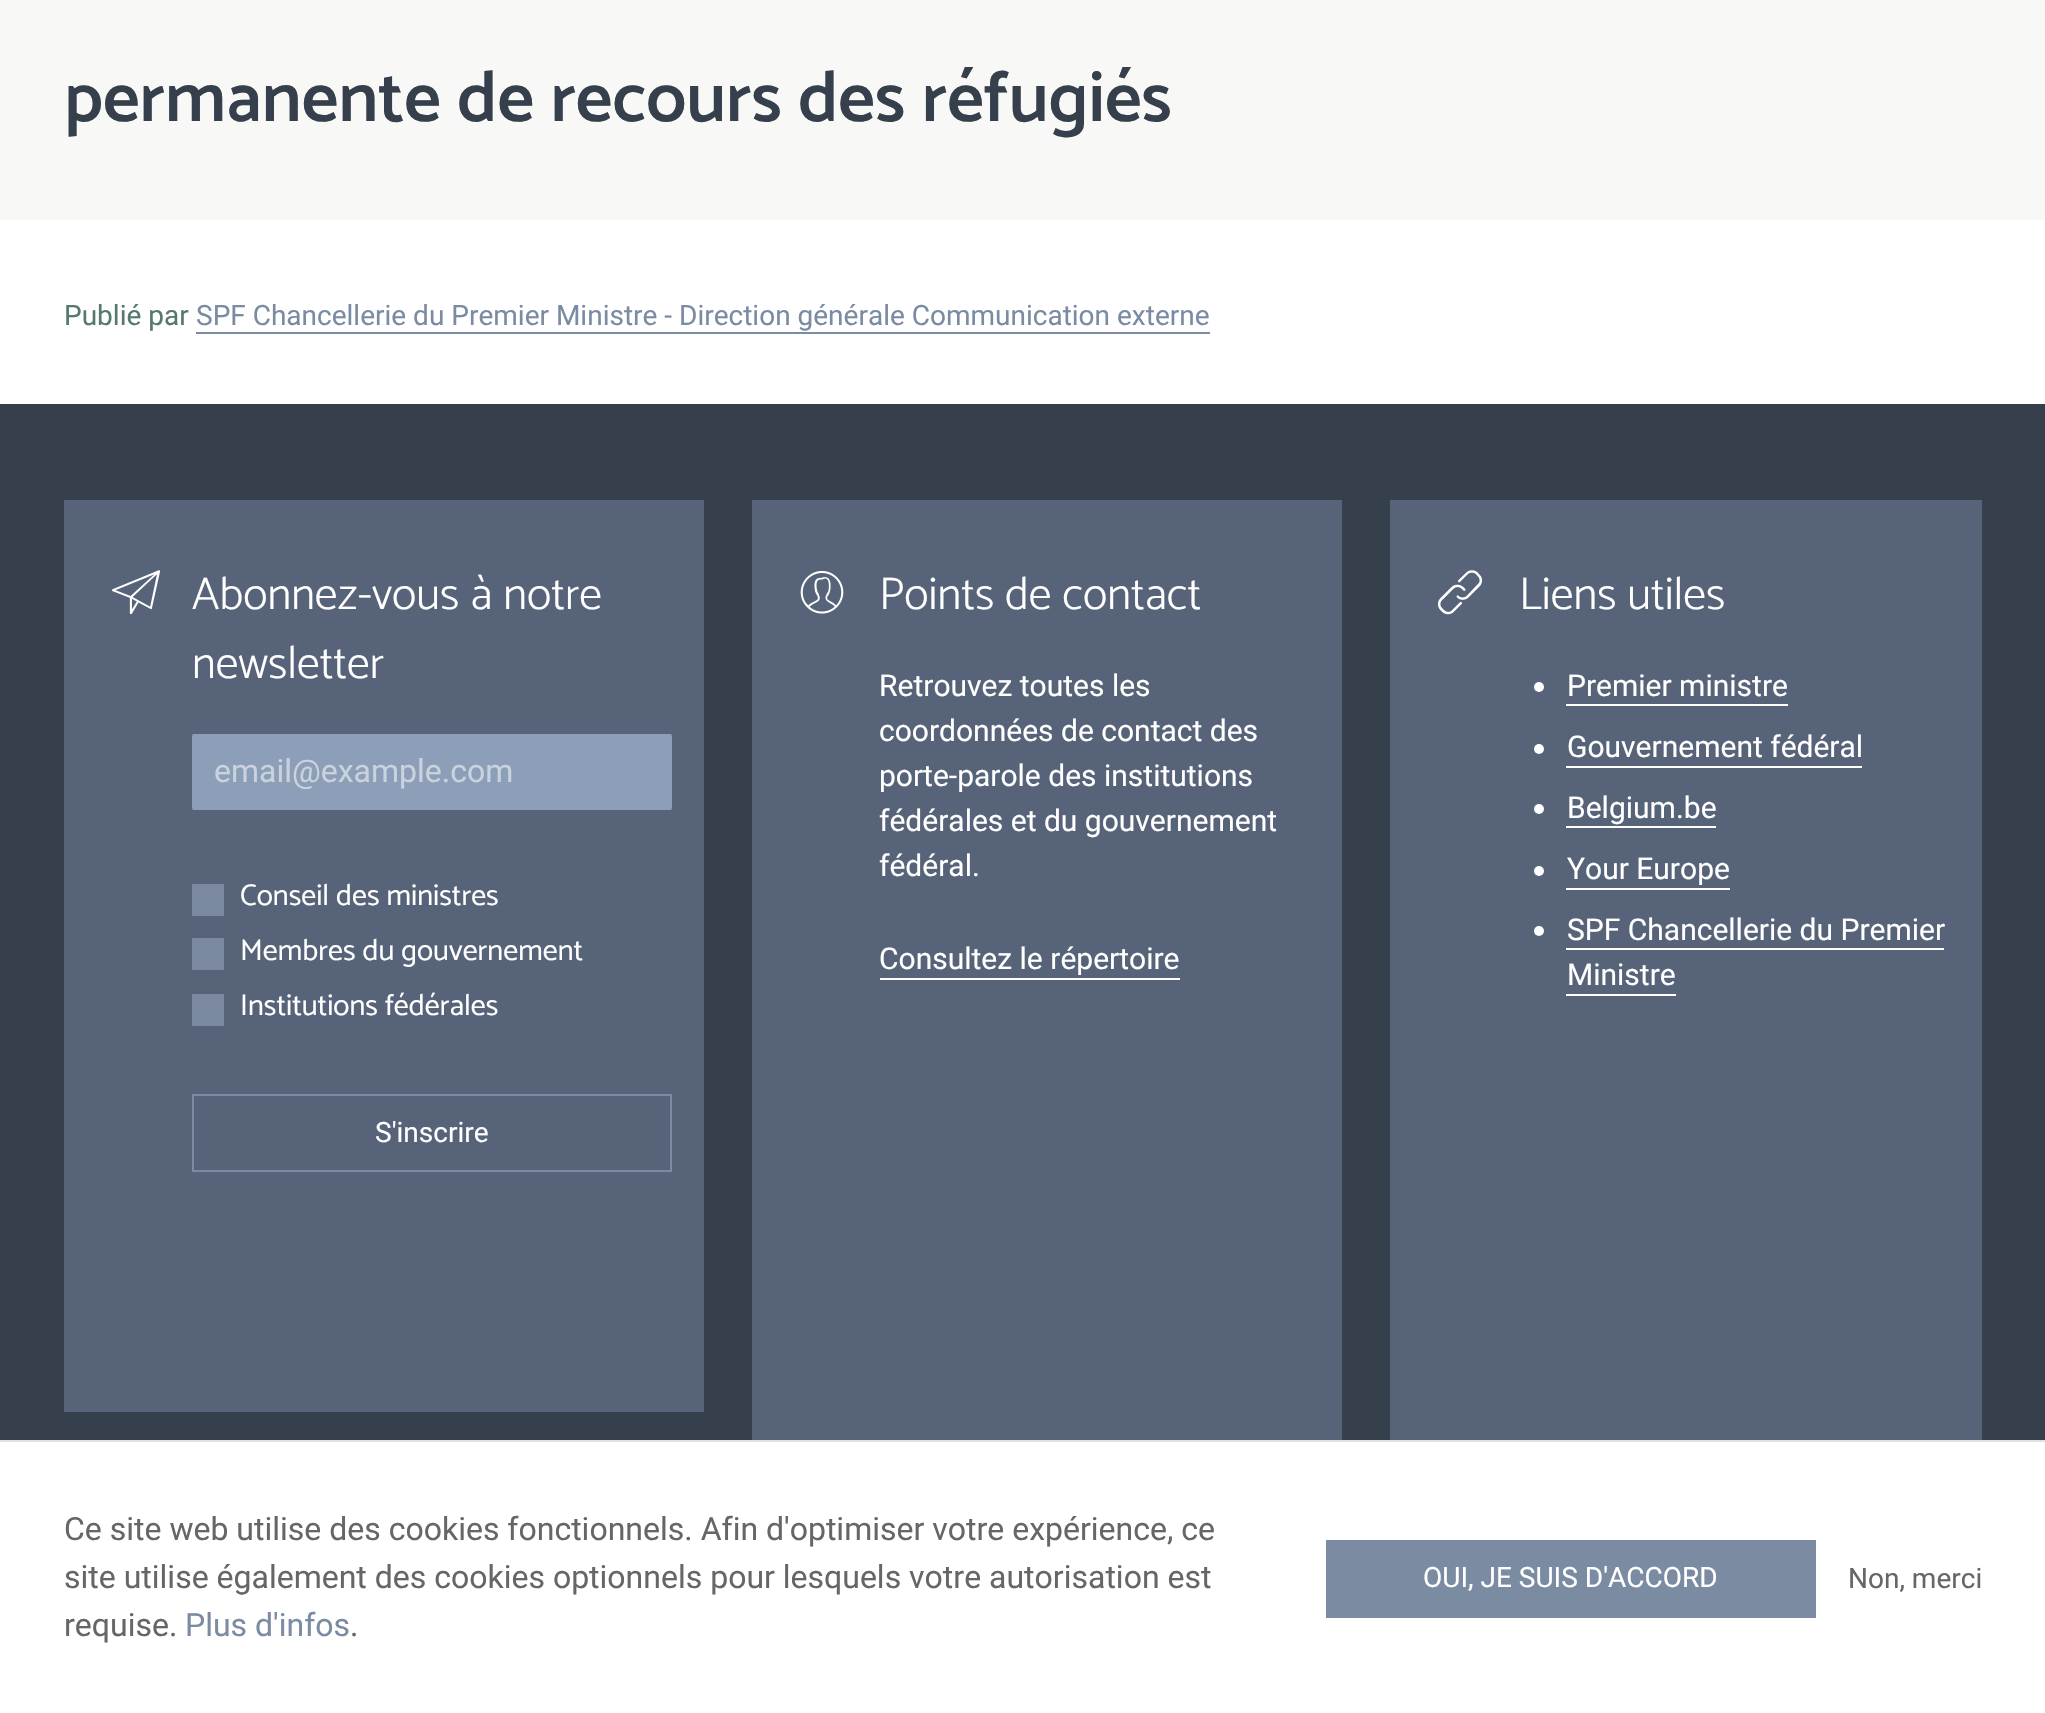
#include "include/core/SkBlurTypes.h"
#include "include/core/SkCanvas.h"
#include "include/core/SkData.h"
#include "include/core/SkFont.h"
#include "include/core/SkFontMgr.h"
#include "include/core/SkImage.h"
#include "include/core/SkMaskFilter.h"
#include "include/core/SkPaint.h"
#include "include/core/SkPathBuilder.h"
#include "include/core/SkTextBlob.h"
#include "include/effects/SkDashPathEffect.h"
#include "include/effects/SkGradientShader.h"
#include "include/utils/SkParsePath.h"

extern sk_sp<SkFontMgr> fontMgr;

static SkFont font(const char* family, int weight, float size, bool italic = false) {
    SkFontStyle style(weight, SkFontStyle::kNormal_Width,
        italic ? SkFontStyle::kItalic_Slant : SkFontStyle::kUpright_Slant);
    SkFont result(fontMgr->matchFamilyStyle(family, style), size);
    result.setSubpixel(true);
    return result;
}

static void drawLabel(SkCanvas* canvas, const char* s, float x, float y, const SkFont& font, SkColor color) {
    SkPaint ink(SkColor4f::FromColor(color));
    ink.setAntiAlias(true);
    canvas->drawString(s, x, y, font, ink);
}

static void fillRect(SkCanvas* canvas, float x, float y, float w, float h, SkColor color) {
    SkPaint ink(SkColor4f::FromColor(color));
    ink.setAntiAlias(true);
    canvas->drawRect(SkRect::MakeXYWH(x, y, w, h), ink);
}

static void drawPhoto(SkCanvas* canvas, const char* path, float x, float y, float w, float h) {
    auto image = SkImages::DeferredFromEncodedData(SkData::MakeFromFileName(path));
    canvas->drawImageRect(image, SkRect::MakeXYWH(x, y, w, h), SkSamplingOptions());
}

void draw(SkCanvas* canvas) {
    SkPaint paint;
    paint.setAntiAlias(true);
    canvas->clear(0xFFF8F8F7);
    SkFont font1 = font("Catamaran", 600, 72);
    drawLabel(canvas, "permanente de recours des réfugiés", 64, 121, font1, 0xFF363F4C);
    fillRect(canvas, 0, 220, 2045, 184, 0xFFFFFFFF);
    SkFont font2 = font("Roboto", 400, 28);
    drawLabel(canvas, "Publié par", 64, 325, font2, 0xFF56786E);
    drawLabel(canvas, "SPF Chancellerie du Premier Ministre - Direction générale Communication externe", 196, 325, font2, 0xFF7B8BA2);
    fillRect(canvas, 196, 332, 1014, 2, 0xFF7B8BA2);
    fillRect(canvas, 0, 404, 2045, 1036, 0xFF363F4C);
    fillRect(canvas, 64, 500, 640, 912, 0xFF566378);
    drawPhoto(canvas, "assets/img1.png", 112, 570, 49, 45);
    SkFont font3 = font("Catamaran", 300, 46);
    drawLabel(canvas, "Abonnez-vous à notre", 192, 609, font3, 0xFFFFFFFF);
    drawLabel(canvas, "newsletter", 192, 678, font3, 0xFFFFFFFF);
    paint.setColor(0xFF8C9EB8);
    canvas->drawRoundRect(SkRect::MakeXYWH(193, 735, 478, 74), 1, 1, paint);
    paint.setStroke(true);
    paint.setStrokeWidth(2);
    canvas->drawRoundRect(SkRect::MakeXYWH(193, 735, 478, 74), 1, 1, paint);
    SkFont font4 = font("Roboto", 400, 32);
    drawLabel(canvas, "email@example.com", 214, 782, font4, 0xFFCAD2DE);
    fillRect(canvas, 192, 884, 32, 32, 0xFF7A89A0);
    SkFont font5 = font("Catamaran", 400, 30);
    drawLabel(canvas, "Conseil des ministres", 240, 905, font5, 0xFFFFFFFF);
    fillRect(canvas, 192, 938, 32, 32, 0xFF7A89A0);
    drawLabel(canvas, "Membres du gouvernement", 240, 960, font5, 0xFFFFFFFF);
    fillRect(canvas, 192, 994, 32, 32, 0xFF7A89A0);
    drawLabel(canvas, "Institutions fédérales", 240, 1015, font5, 0xFFFFFFFF);
    paint.setColor(0xFF7B8BA2);
    canvas->drawRect(SkRect::MakeXYWH(193, 1095, 478, 76), paint);
    drawLabel(canvas, "S'inscrire", 375, 1142, font2, 0xFFFFFFFF);
    fillRect(canvas, 752, 500, 590, 940, 0xFF566378);
    drawPhoto(canvas, "assets/img2.png", 800, 570, 44, 44);
    drawLabel(canvas, "Points de contact", 879, 609, font3, 0xFFFFFFFF);
    SkFont font6 = font("Roboto", 400, 30);
    drawLabel(canvas, "Retrouvez toutes les", 879, 696, font6, 0xFFFFFFFF);
    drawLabel(canvas, "coordonnées de contact des", 879, 741, font6, 0xFFFFFFFF);
    drawLabel(canvas, "porte-parole des institutions", 879, 786, font6, 0xFFFFFFFF);
    drawLabel(canvas, "fédérales et du gouvernement", 879, 831, font6, 0xFFFFFFFF);
    drawLabel(canvas, "fédéral.", 879, 876, font6, 0xFFFFFFFF);
    drawLabel(canvas, "Consultez le répertoire", 879, 969, font6, 0xFFFFFFFF);
    fillRect(canvas, 880, 978, 300, 2, 0xFFFFFFFF);
    fillRect(canvas, 1390, 500, 592, 940, 0xFF566378);
    drawPhoto(canvas, "assets/img3.png", 1438, 570, 44, 45);
    drawLabel(canvas, "Liens utiles", 1519, 609, font3, 0xFFFFFFFF);
    paint.setStroke(false);
    paint.setColor(0xFFFFFFFF);
    canvas->drawCircle(1539, 687, 5, paint);
    drawLabel(canvas, "Premier ministre", 1567, 696, font6, 0xFFFFFFFF);
    fillRect(canvas, 1566, 704, 222, 2, 0xFFFFFFFF);
    canvas->drawCircle(1539, 749, 5, paint);
    drawLabel(canvas, "Gouvernement fédéral", 1567, 757, font6, 0xFFFFFFFF);
    fillRect(canvas, 1566, 766, 296, 2, 0xFFFFFFFF);
    canvas->drawCircle(1539, 809, 5, paint);
    drawLabel(canvas, "Belgium.be", 1567, 818, font6, 0xFFFFFFFF);
    fillRect(canvas, 1566, 826, 150, 2, 0xFFFFFFFF);
    canvas->drawCircle(1539, 871, 5, paint);
    drawLabel(canvas, "Your Europe", 1567, 879, font6, 0xFFFFFFFF);
    fillRect(canvas, 1566, 888, 164, 2, 0xFFFFFFFF);
    canvas->drawCircle(1539, 931, 5, paint);
    drawLabel(canvas, "SPF Chancellerie du Premier", 1567, 940, font6, 0xFFFFFFFF);
    fillRect(canvas, 1566, 948, 378, 2, 0xFFFFFFFF);
    drawLabel(canvas, "Ministre", 1567, 985, font6, 0xFFFFFFFF);
    fillRect(canvas, 1566, 994, 110, 2, 0xFFFFFFFF);
    fillRect(canvas, 0, 1442, 2045, 271, 0xFFFFFFFF);
    fillRect(canvas, 0, 1440, 2045, 2, 0xFFE1E1E1);
    drawLabel(canvas, "Ce site web utilise des cookies fonctionnels. Afin d'optimiser votre expérience, ce", 64, 1540, font4, 0xFF666666);
    drawLabel(canvas, "site utilise également des cookies optionnels pour lesquels votre autorisation est", 64, 1588, font4, 0xFF666666);
    drawLabel(canvas, "requise.", 64, 1636, font4, 0xFF666666);
    drawLabel(canvas, "Plus d'infos", 185, 1636, font4, 0xFF7B8BA2);
    drawLabel(canvas, ".", 350, 1636, font4, 0xFF666666);
    fillRect(canvas, 1326, 1540, 490, 78, 0xFF7B8BA2);
    drawLabel(canvas, "OUI, JE SUIS D'ACCORD", 1423, 1587, font2, 0xFFFFFFFF);
    drawLabel(canvas, "Non, merci", 1848, 1588, font2, 0xFF666666);
}
